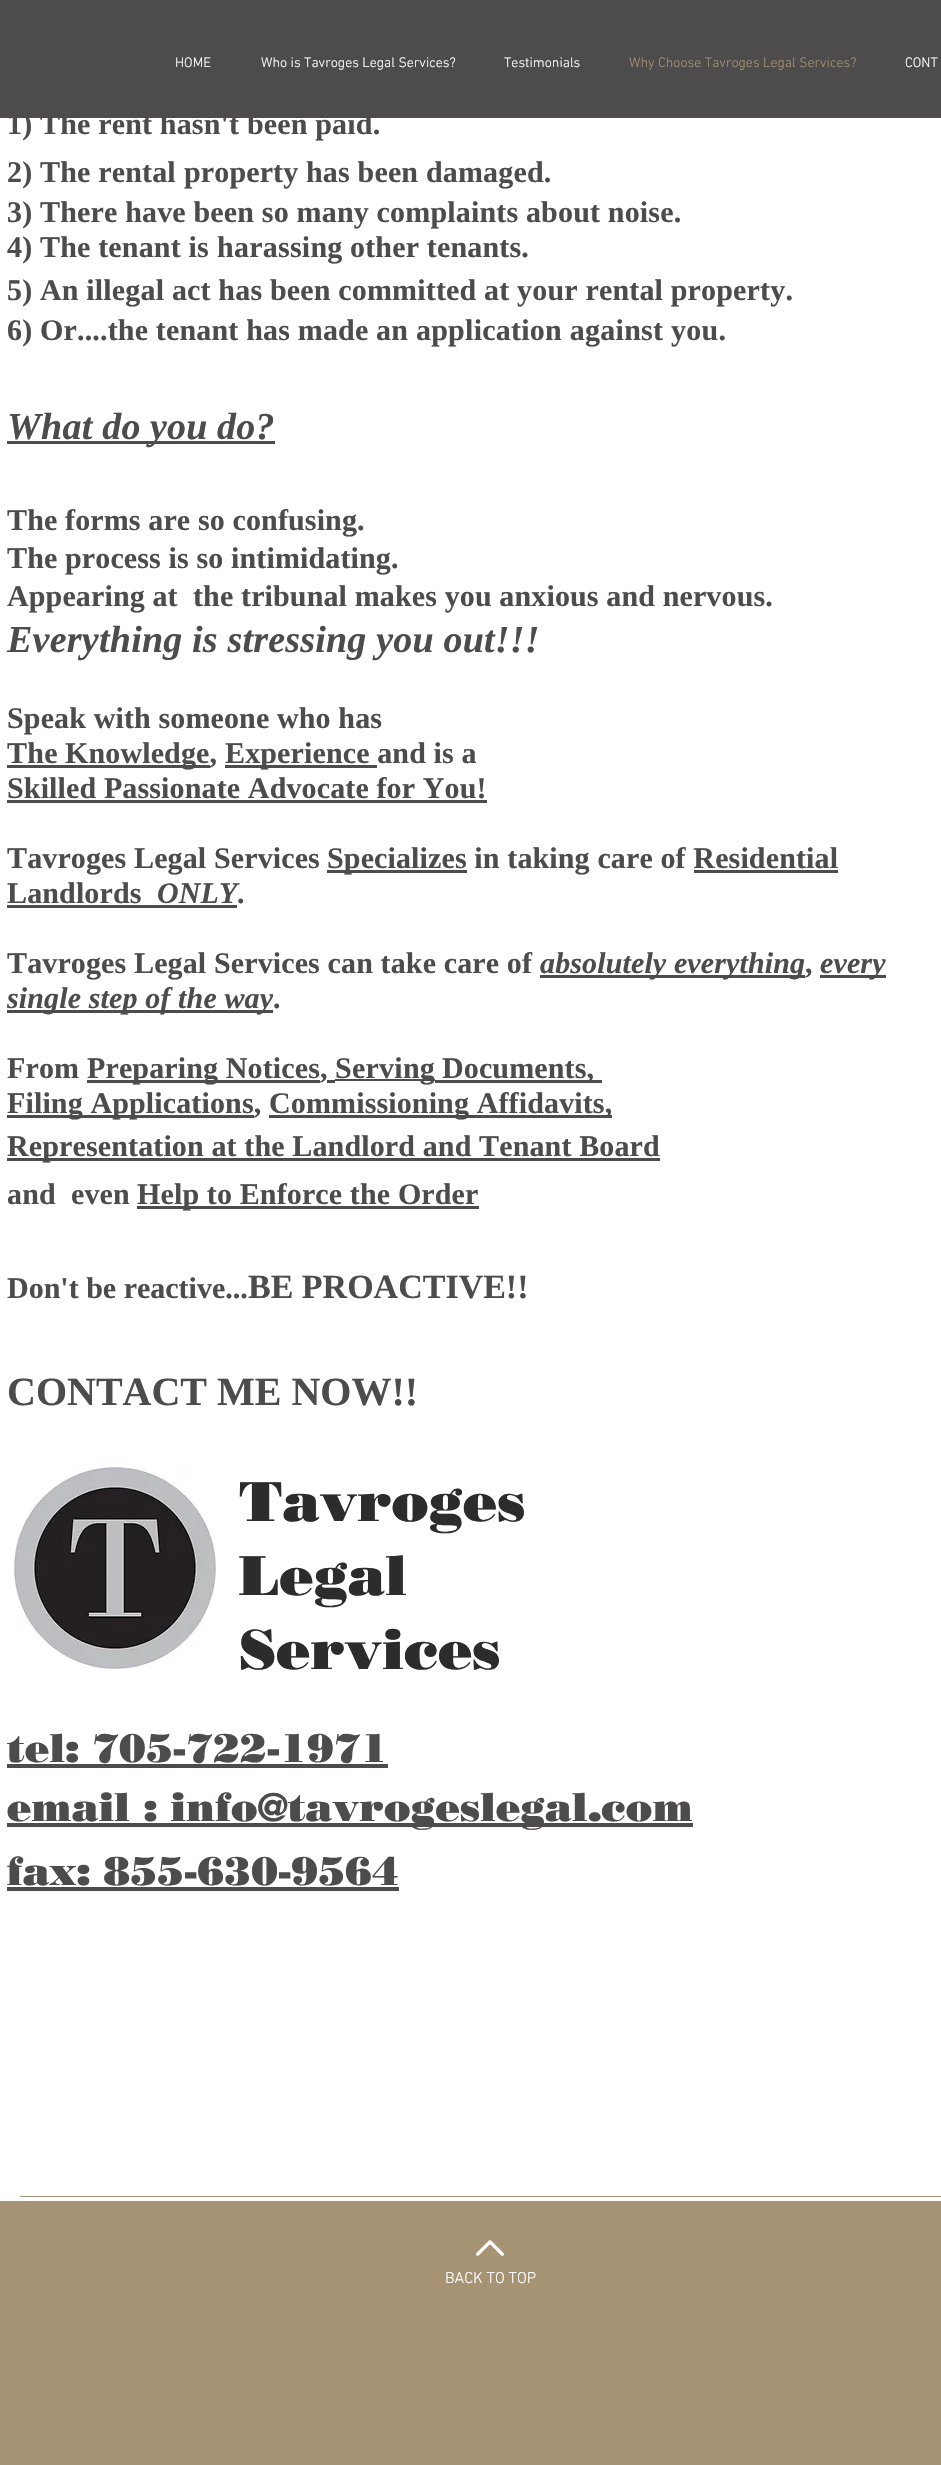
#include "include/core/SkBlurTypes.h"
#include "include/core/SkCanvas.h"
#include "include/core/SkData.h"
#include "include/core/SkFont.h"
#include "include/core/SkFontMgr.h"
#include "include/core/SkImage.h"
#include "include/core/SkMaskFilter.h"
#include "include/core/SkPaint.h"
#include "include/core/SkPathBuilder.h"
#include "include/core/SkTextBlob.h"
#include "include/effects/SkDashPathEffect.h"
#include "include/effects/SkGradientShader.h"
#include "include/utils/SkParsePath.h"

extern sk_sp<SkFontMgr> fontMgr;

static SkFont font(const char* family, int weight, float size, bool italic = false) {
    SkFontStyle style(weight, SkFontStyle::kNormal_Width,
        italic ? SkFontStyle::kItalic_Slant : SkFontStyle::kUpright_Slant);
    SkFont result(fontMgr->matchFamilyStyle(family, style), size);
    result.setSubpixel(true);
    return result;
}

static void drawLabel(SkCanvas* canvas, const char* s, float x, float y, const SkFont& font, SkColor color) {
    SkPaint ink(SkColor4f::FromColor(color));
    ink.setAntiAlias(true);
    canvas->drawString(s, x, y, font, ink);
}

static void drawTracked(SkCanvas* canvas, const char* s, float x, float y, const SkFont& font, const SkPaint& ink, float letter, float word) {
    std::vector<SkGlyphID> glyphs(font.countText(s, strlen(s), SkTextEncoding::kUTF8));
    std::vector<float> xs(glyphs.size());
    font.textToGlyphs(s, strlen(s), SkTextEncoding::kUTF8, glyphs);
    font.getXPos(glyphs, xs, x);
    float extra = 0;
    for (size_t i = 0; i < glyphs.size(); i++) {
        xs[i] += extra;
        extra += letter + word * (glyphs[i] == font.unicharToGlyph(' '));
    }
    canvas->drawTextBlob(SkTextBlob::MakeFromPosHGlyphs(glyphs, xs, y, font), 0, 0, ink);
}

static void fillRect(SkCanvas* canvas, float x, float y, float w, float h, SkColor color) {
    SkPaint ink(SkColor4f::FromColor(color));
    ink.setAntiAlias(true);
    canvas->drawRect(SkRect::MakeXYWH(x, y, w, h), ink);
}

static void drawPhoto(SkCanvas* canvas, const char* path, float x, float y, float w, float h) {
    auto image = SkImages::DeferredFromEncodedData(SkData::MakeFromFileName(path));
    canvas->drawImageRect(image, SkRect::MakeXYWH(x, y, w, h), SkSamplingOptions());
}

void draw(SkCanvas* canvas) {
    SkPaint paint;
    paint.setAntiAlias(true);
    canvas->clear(0xFFFFFFFF);
    fillRect(canvas, 0, 0, 941, 118, 0xFF4D4B4B);
    SkFont font1 = font("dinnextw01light", 300, 14);
    drawLabel(canvas, "HOME", 175, 67, font1, 0xFFFFFFFF);
    drawLabel(canvas, "Who is Tavroges Legal Services?", 261, 67, font1, 0xFFFFFFFF);
    drawLabel(canvas, "Testimonials", 504, 67, font1, 0xFFFFFFFF);
    drawLabel(canvas, "Why Choose Tavroges Legal Services?", 629, 67, font1, 0xFFA69374);
    drawLabel(canvas, "CONT", 905, 67, font1, 0xFFFFFFFF);
    SkFont font2 = font("Liberation Serif", 700, 30);
    paint.setColor(0xFF4D4B4B);
    drawTracked(canvas, "1) The rent hasn't been paid.", 7, 134, font2, paint, 0.17f, 0);
    drawTracked(canvas, "2) The rental", 7, 182, font2, paint, 0.17f, 0);
    drawTracked(canvas, "property", 184, 182, font2, paint, 0.13f, 0);
    drawTracked(canvas, "has been damaged.", 306, 182, font2, paint, 0.17f, 0);
    drawTracked(canvas, "3) There have been so many complaints about noise.", 7, 222, font2, paint, 0.17f, 0);
    drawTracked(canvas, "4) The tenant is", 7, 257, font2, paint, 0.17f, 0);
    drawTracked(canvas, "harassing", 217, 257, font2, paint, 0.25f, 0);
    drawTracked(canvas, "other tenants.", 350, 257, font2, paint, 0.17f, 0);
    drawTracked(canvas, "5) An illegal act has been committed at your rental property.", 7, 300, font2, paint, 0.17f, 0);
    drawTracked(canvas, "6) Or....the tenant has made", 7, 340, font2, paint, 0.17f, 0);
    drawTracked(canvas, "an application against you.", 376, 340, font2, paint, 0.25f, 0);
    SkFont font3 = font("Liberation Serif", 700, 38, true);
    drawTracked(canvas, "What do", 7, 439, font3, paint, 0.25f, 0);
    fillRect(canvas, 7, 441, 268, 3, 0xFF4D4B4B);
    drawTracked(canvas, "you", 150, 439, font3, paint, 0.2f, 0);
    drawTracked(canvas, "do?", 217, 439, font3, paint, 0.25f, 0);
    drawTracked(canvas, "The forms are so confusing.", 7, 530, font2, paint, 0.13f, 0);
    drawTracked(canvas, "The process is so intimidating.", 7, 568, font2, paint, 0.13f, 0);
    drawTracked(canvas, "Appearing at  the tribunal makes you anxious and nervous.", 7, 606, font2, paint, 0.13f, 0);
    drawTracked(canvas, "Everything", 7, 652, font3, paint, 0.25f, 0);
    drawTracked(canvas, "is stressing you out!!!", 192, 652, font3, paint, 0.2f, 0);
    drawTracked(canvas, "Speak with someone who has", 7, 728, font2, paint, 0.13f, 0);
    drawTracked(canvas, "The", 7, 763, font2, paint, 0.25f, 0);
    fillRect(canvas, 7, 765, 203, 3, 0xFF4D4B4B);
    drawTracked(canvas, "Knowledge,", 65, 763, font2, paint, 0.13f, 0);
    fillRect(canvas, 225, 765, 152, 3, 0xFF4D4B4B);
    drawTracked(canvas, "Experience and is a", 225, 763, font2, paint, 0.13f, 0);
    drawTracked(canvas, "Skilled Passionate Advocate for You!", 7, 798, font2, paint, 0.13f, 0);
    fillRect(canvas, 7, 800, 480, 3, 0xFF4D4B4B);
    drawTracked(canvas, "Tavroges Legal Services", 7, 868, font2, paint, 0.13f, 0);
    fillRect(canvas, 327, 870, 140, 3, 0xFF4D4B4B);
    drawTracked(canvas, "Specializes in taking care of Residential", 327, 868, font2, paint, 0.13f, 0);
    fillRect(canvas, 694, 870, 144, 3, 0xFF4D4B4B);
    drawTracked(canvas, "Landlords", 7, 903, font2, paint, 0.13f, 0);
    SkFont font4 = font("Liberation Serif", 700, 30, true);
    drawTracked(canvas, "ONLY", 157, 903, font4, paint, 0.13f, 0);
    drawTracked(canvas, ".", 237, 903, font2, paint, 0.13f, 0);
    fillRect(canvas, 7, 905, 230, 3, 0xFF4D4B4B);
    drawTracked(canvas, "Tavroges Legal Services can take care of", 7, 973, font2, paint, 0.13f, 0);
    fillRect(canvas, 540, 975, 265, 3, 0xFF4D4B4B);
    drawTracked(canvas, "absolutely everything", 540, 973, font4, paint, 0.13f, 0);
    drawTracked(canvas, ",", 805, 973, font2, paint, 0.13f, 0);
    fillRect(canvas, 820, 975, 66, 3, 0xFF4D4B4B);
    drawTracked(canvas, "every", 820, 973, font4, paint, 0.13f, 0);
    fillRect(canvas, 7, 1010, 266, 3, 0xFF4D4B4B);
    drawTracked(canvas, "single step of the way", 7, 1008, font4, paint, 0.13f, 0);
    drawTracked(canvas, ".", 273, 1008, font2, paint, 0.13f, 0);
    drawTracked(canvas, "From", 7, 1078, font2, paint, 0.13f, 0);
    fillRect(canvas, 87, 1080, 233, 3, 0xFF4D4B4B);
    drawTracked(canvas, "Preparing Notices,", 87, 1078, font2, paint, 0.13f, 0);
    fillRect(canvas, 327, 1080, 8, 3, 0xFF4D4B4B);
    fillRect(canvas, 335, 1079, 100, 2, 0xFF4D4B4B);
    drawTracked(canvas, "Serving", 335, 1078, font2, paint, 0.25f, 0);
    fillRect(canvas, 435, 1080, 167, 3, 0xFF4D4B4B);
    drawTracked(canvas, "Documents,", 442, 1078, font2, paint, 0.13f, 0);
    fillRect(canvas, 7, 1115, 247, 3, 0xFF4D4B4B);
    drawTracked(canvas, "Filing Applications,", 7, 1113, font2, paint, 0.13f, 0);
    fillRect(canvas, 269, 1115, 343, 3, 0xFF4D4B4B);
    drawTracked(canvas, "Commissioning Affidavits,", 269, 1113, font2, paint, 0.13f, 0);
    fillRect(canvas, 7, 1158, 653, 3, 0xFF4D4B4B);
    drawTracked(canvas, "Representation at the Landlord and Tenant Board", 7, 1156, font2, paint, 0.13f, 0);
    drawTracked(canvas, "and  even", 7, 1204, font2, paint, 0.13f, 0);
    fillRect(canvas, 137, 1206, 342, 3, 0xFF4D4B4B);
    drawTracked(canvas, "Help to Enforce the Order", 137, 1204, font2, paint, 0.13f, 0);
    drawLabel(canvas, "Don't be reactive...", 7, 1298, font2, 0xFF4D4B4B);
    SkFont font5 = font("Liberation Serif", 700, 34);
    drawLabel(canvas, "BE PROACTIVE!!", 248, 1298, font5, 0xFF4D4B4B);
    SkFont font6 = font("Liberation Serif", 700, 40);
    drawLabel(canvas, "CONTACT ME NOW!!", 7, 1405, font6, 0xFF4D4B4B);
    SkFont font7 = font("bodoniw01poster", 900, 40);
    drawTracked(canvas, "tel: 705-722-1971", 7, 1762, font7, paint, 0.17f, 0);
    fillRect(canvas, 7, 1764, 381, 4, 0xFF4D4B4B);
    fillRect(canvas, 7, 1823, 686, 4, 0xFF4D4B4B);
    drawTracked(canvas, "email : info@tavrogeslegal.com", 7, 1821, font7, paint, 0.17f, 0);
    drawTracked(canvas, "fax: 855-630-9564", 7, 1885, font7, paint, 0.17f, 0);
    fillRect(canvas, 7, 1887, 392, 4, 0xFF4D4B4B);
    drawPhoto(canvas, "assets/img1.png", 14, 1467, 202, 202);
    SkFont font8 = font("bodoniw01poster", 900, 56);
    drawLabel(canvas, "Tavroges", 239, 1521, font8, 0xFF2C2C2C);
    drawLabel(canvas, "Legal", 239, 1595, font8, 0xFF2C2C2C);
    drawLabel(canvas, "Services", 239, 1669, font8, 0xFF2C2C2C);
    fillRect(canvas, 20, 2196, 921, 1, 0xFFA69374);
    fillRect(canvas, 0, 2201, 941, 264, 0xFFA69374);
    drawPhoto(canvas, "assets/img2.png", 476, 2240, 28, 16);
    SkFont font9 = font("dinnextw01light", 300, 16);
    drawLabel(canvas, "BACK TO TOP", 445, 2283, font9, 0xFFFFFFFF);
}
